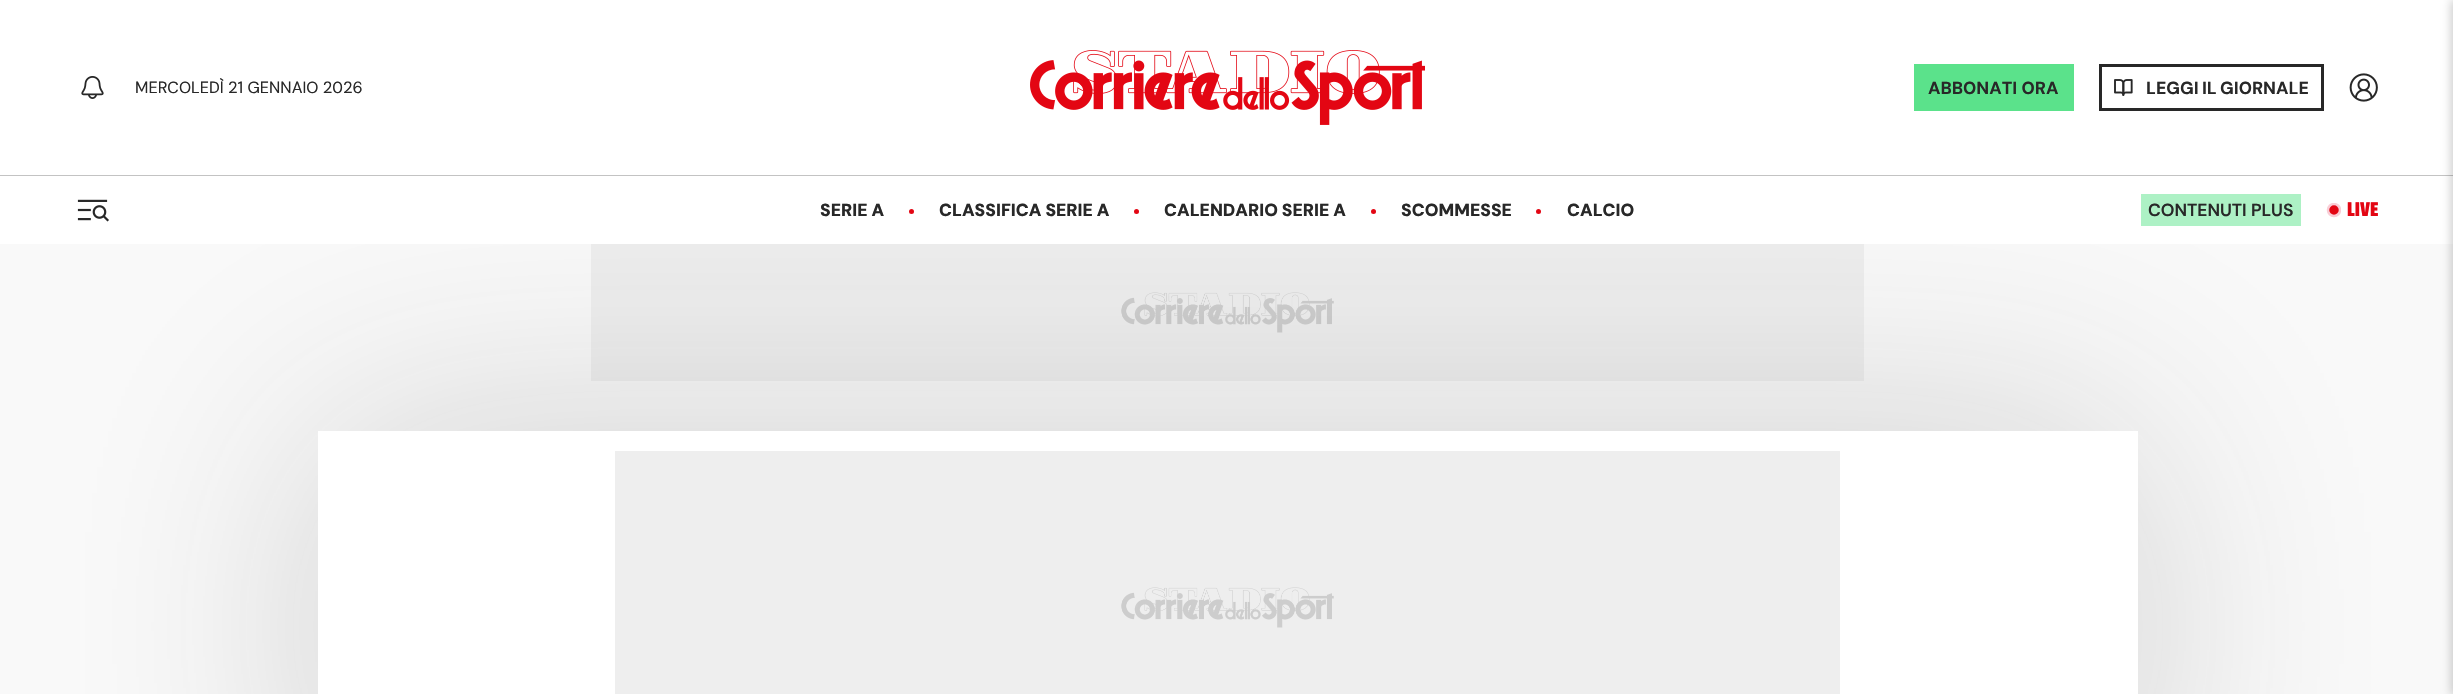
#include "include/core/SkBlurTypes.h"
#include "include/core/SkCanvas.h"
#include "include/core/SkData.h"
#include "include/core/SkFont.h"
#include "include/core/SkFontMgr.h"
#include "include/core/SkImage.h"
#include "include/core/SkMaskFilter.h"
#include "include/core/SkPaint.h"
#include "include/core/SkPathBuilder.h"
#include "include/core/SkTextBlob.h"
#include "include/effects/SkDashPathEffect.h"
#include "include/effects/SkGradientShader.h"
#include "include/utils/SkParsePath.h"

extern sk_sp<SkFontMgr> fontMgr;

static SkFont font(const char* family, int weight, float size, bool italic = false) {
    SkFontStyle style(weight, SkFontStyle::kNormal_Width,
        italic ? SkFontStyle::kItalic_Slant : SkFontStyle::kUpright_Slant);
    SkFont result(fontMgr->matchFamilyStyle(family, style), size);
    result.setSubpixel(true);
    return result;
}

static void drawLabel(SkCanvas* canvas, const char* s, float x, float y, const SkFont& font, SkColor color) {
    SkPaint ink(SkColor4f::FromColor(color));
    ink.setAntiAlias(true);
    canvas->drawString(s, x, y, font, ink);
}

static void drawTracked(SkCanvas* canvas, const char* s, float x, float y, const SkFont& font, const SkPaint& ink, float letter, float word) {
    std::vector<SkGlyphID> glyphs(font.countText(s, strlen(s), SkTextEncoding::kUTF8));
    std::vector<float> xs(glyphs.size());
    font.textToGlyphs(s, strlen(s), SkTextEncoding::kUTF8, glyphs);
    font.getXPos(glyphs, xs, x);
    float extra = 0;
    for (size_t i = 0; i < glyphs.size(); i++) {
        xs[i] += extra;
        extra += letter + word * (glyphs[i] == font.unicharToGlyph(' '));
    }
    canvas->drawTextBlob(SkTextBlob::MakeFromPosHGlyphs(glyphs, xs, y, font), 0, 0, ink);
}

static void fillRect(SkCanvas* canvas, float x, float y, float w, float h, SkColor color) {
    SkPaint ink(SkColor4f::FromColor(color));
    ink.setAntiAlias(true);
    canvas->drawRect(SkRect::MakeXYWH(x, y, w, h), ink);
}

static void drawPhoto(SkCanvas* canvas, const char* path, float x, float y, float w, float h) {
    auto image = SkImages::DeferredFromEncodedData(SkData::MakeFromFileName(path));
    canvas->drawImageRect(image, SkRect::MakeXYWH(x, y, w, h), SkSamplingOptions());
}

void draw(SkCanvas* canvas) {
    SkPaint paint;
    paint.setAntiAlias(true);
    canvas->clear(0xFFF9F9F9);
    fillRect(canvas, 591, 244, 1273, 137, 0xFFEEEEEE);
    drawPhoto(canvas, "assets/img1.png", 1121, 292, 213, 41);
    paint.setColor(0x33282828);
    paint.setMaskFilter(SkMaskFilter::MakeBlur(kNormal_SkBlurStyle, 156));
    canvas->drawRect(SkRect::MakeXYWH(318, 431, 1820, 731), paint);
    paint.setMaskFilter(nullptr);
    fillRect(canvas, 318, 431, 1820, 263, 0xFFFFFFFF);
    fillRect(canvas, 615, 451, 1225, 243, 0xFFEEEEEE);
    drawPhoto(canvas, "assets/img1.png", 1121, 587, 213, 41);
    fillRect(canvas, 0, 0, 2453, 244, 0xFFFFFFFF);
    drawPhoto(canvas, "assets/img2.png", 81, 76, 23, 23);
    SkFont font1 = font("DM Sans", 400, 16.25f);
    drawLabel(canvas, "MERCOLEDÌ 21 GENNAIO 2026", 135, 93, font1, 0xFF282828);
    drawPhoto(canvas, "assets/img3.png", 1030, 50, 395, 75);
    fillRect(canvas, 1914, 64, 160, 47, 0xFF5BE28B);
    SkFont font2 = font("DM Sans", 700, 17.5f);
    drawLabel(canvas, "ABBONATI ORA", 1928, 94, font2, 0xFF282828);
    paint.setStroke(true);
    paint.setStrokeWidth(3);
    paint.setColor(0xFF282828);
    canvas->drawRect(SkRect::MakeXYWH(2100.5f, 65.5f, 222, 44), paint);
    drawPhoto(canvas, "assets/img4.png", 2114, 79, 19, 17);
    paint.setStroke(false);
    drawTracked(canvas, "LEGGI IL GIORNALE", 2146, 94, font2, paint, 0, -1);
    drawPhoto(canvas, "assets/img5.png", 2349, 73, 29, 29);
    fillRect(canvas, 0, 175, 2453, 1, 0xFFC3C3C3);
    drawPhoto(canvas, "assets/img6.png", 77, 199, 32, 23);
    SkFont font3 = font("DM Sans", 900, 17.5f);
    drawLabel(canvas, "SERIE A", 820, 216, font3, 0xFF282828);
    paint.setColor(0xFFE30613);
    canvas->drawCircle(911.5f, 211.5f, 2.5f, paint);
    drawLabel(canvas, "CLASSIFICA SERIE A", 939, 216, font3, 0xFF282828);
    canvas->drawCircle(1136.5f, 211.5f, 2.5f, paint);
    drawLabel(canvas, "CALENDARIO SERIE A", 1164, 216, font3, 0xFF282828);
    canvas->drawCircle(1373.5f, 211.5f, 2.5f, paint);
    drawLabel(canvas, "SCOMMESSE", 1401, 216, font3, 0xFF282828);
    canvas->drawCircle(1538.5f, 211.5f, 2.5f, paint);
    drawLabel(canvas, "CALCIO", 1567, 216, font3, 0xFF282828);
    fillRect(canvas, 2141, 194, 160, 32, 0xFFADF1C5);
    SkFont font4 = font("DM Sans", 600, 17.5f);
    drawLabel(canvas, "CONTENUTI PLUS", 2148, 216, font4, 0xFF282828);
    canvas->drawCircle(2334, 210, 6, paint);
    canvas->save();
    canvas->clipRect(SkRect::MakeXYWH(2326, 203, 15, 15));
    paint.setStroke(true);
    paint.setStrokeWidth(2.5f);
    paint.setColor(0xFFF9CDD6);
    canvas->drawCircle(2334, 210, 6, paint);
    canvas->restore();
    SkFont font5 = font("Saira Condensed", 900, 20);
    drawLabel(canvas, "LIVE", 2347, 216, font5, 0xFFE30613);
    paint.setStroke(false);
    paint.setColor(0x33000000);
    paint.setMaskFilter(SkMaskFilter::MakeBlur(kNormal_SkBlurStyle, 5));
    canvas->drawRect(SkRect::MakeXYWH(2451, 0, 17, 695), paint);
    paint.setMaskFilter(nullptr);
}
